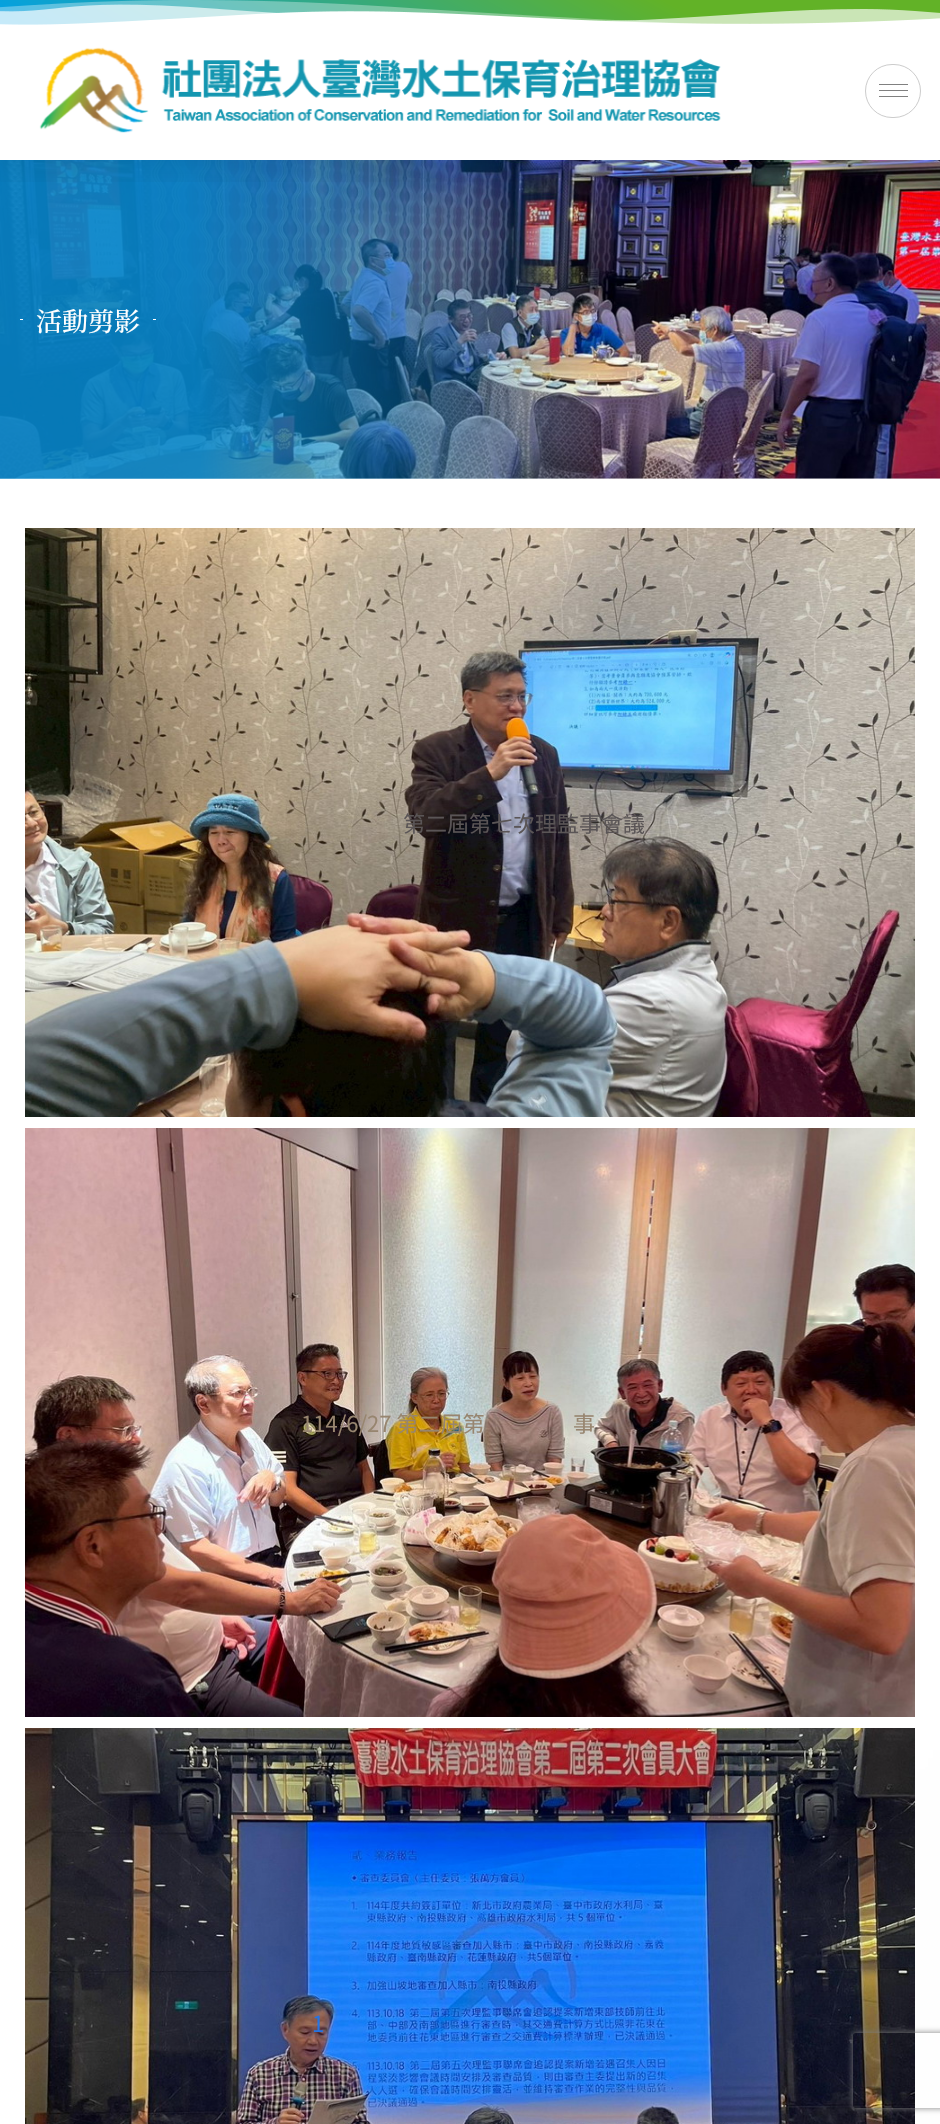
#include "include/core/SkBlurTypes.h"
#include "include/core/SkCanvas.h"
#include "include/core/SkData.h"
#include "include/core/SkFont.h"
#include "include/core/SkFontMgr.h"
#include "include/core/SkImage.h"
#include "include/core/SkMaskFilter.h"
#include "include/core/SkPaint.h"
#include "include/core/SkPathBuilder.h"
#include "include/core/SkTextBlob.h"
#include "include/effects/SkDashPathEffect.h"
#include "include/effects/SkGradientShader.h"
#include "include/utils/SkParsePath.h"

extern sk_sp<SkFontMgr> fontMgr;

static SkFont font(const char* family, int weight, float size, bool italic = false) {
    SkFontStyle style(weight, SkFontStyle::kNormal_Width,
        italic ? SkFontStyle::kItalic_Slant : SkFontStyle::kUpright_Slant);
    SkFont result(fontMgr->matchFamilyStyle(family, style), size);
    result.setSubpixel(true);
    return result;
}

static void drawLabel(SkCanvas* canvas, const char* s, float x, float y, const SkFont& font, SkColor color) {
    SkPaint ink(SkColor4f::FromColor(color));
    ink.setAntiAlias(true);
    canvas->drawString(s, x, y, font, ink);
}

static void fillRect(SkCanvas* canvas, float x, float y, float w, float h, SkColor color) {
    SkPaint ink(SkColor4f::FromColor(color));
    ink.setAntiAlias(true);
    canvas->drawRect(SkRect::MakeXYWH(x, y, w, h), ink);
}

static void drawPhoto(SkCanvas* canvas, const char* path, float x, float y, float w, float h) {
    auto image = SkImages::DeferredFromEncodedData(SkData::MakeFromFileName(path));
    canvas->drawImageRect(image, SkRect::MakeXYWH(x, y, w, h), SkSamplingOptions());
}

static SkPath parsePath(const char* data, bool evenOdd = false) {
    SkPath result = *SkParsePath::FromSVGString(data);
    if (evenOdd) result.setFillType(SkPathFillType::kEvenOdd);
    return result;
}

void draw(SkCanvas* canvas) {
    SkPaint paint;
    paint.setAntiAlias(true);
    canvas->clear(0xFFFFFFFF);
    drawPhoto(canvas, "assets/img3.png", 0, 160, 940, 319);
    {
        const SkColor colors[] = {0x000784C8, 0xE80784C8};
        const float stops[] = {0.37f, 0.79f};
        const SkPoint ends[] = {{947, 294}, {-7, 344}};
        paint.setShader(SkGradientShader::MakeLinear(ends, colors, stops, 2, SkTileMode::kClamp));
        paint.setAlpha(255);
    }
    canvas->drawRect(SkRect::MakeXYWH(0, 160, 593, 319), paint);
    canvas->save();
    canvas->clipRect(SkRect::MakeXYWH(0, 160, 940, 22));
    paint.setShader(nullptr);
    paint.setColor(0x1A000000);
    paint.setMaskFilter(SkMaskFilter::MakeBlur(kNormal_SkBlurStyle, 19));
    canvas->drawRect(SkRect::MakeXYWH(0, 6, 940, 160), paint);
    paint.setMaskFilter(nullptr);
    canvas->restore();
    {
        const SkColor colors[] = {0xFF62B227, 0xFF00A0E8};
        const float stops[] = {0.28f, 1};
        const SkPoint ends[] = {{593, -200}, {347, 226}};
        paint.setShader(SkGradientShader::MakeLinear(ends, colors, stops, 2, SkTileMode::kClamp));
        paint.setAlpha(255);
    }
    canvas->drawRect(SkRect::MakeXYWH(0, 0, 940, 25), paint);
    drawPhoto(canvas, "assets/img1.png", 0, 0, 940, 26);
    drawPhoto(canvas, "assets/img2.png", 39, 47, 682, 86);
    paint.setStroke(true);
    paint.setStrokeWidth(1);
    paint.setShader(nullptr);
    paint.setColor(0xFFCCCCCC);
    canvas->drawRoundRect(SkRect::MakeXYWH(865.5f, 64.5f, 55, 53), 26.5f, 26.5f, paint);
    fillRect(canvas, 879, 84, 29, 1, 0xFF808080);
    fillRect(canvas, 879, 90, 29, 1, 0xFF808080);
    fillRect(canvas, 879, 96, 29, 1, 0xFF808080);
    fillRect(canvas, 20, 319, 3, 1, 0xFFFFFFFF);
    SkFont font1 = font("Noto Serif TC", 500, 26);
    drawLabel(canvas, "活動剪影", 36, 331, font1, 0xFFFFFFFF);
    fillRect(canvas, 153, 319, 3, 1, 0xFFFFFFFF);
    drawPhoto(canvas, "assets/img4.png", 0, 478, 940, 1646);
    drawPhoto(canvas, "assets/img5.png", 25, 528, 890, 589);
    SkFont font2 = font("Noto Sans TC", 400, 22);
    drawLabel(canvas, "第二屆第七次理監事會議", 403, 832, font2, 0xFF5A5556);
    drawPhoto(canvas, "assets/img6.png", 25, 1128, 890, 589);
    drawLabel(canvas, "114/6/27 第二屆第", 301, 1432, font2, 0xFF97856F);
    drawLabel(canvas, "事", 573, 1432, font2, 0xFF97856F);
    drawPhoto(canvas, "assets/img7.png", 25, 1728, 890, 396);
    drawLabel(canvas, "1", 312, 2032, font2, 0xFF2574E3);
    canvas->save();
    canvas->clipPath(parsePath("M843 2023H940V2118H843ZM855.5 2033H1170.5C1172 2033 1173 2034 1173 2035.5V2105.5C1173 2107 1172 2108 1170.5 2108H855.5C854 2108 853 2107 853 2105.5V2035.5C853 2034 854 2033 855.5 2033Z", true), true);
    paint.setStroke(false);
    paint.setColor(0xFF808080);
    paint.setMaskFilter(SkMaskFilter::MakeBlur(kNormal_SkBlurStyle, 3));
    canvas->drawRoundRect(SkRect::MakeXYWH(853, 2033, 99, 75), 2.5f, 2.5f, paint);
    paint.setMaskFilter(nullptr);
    canvas->restore();
}
